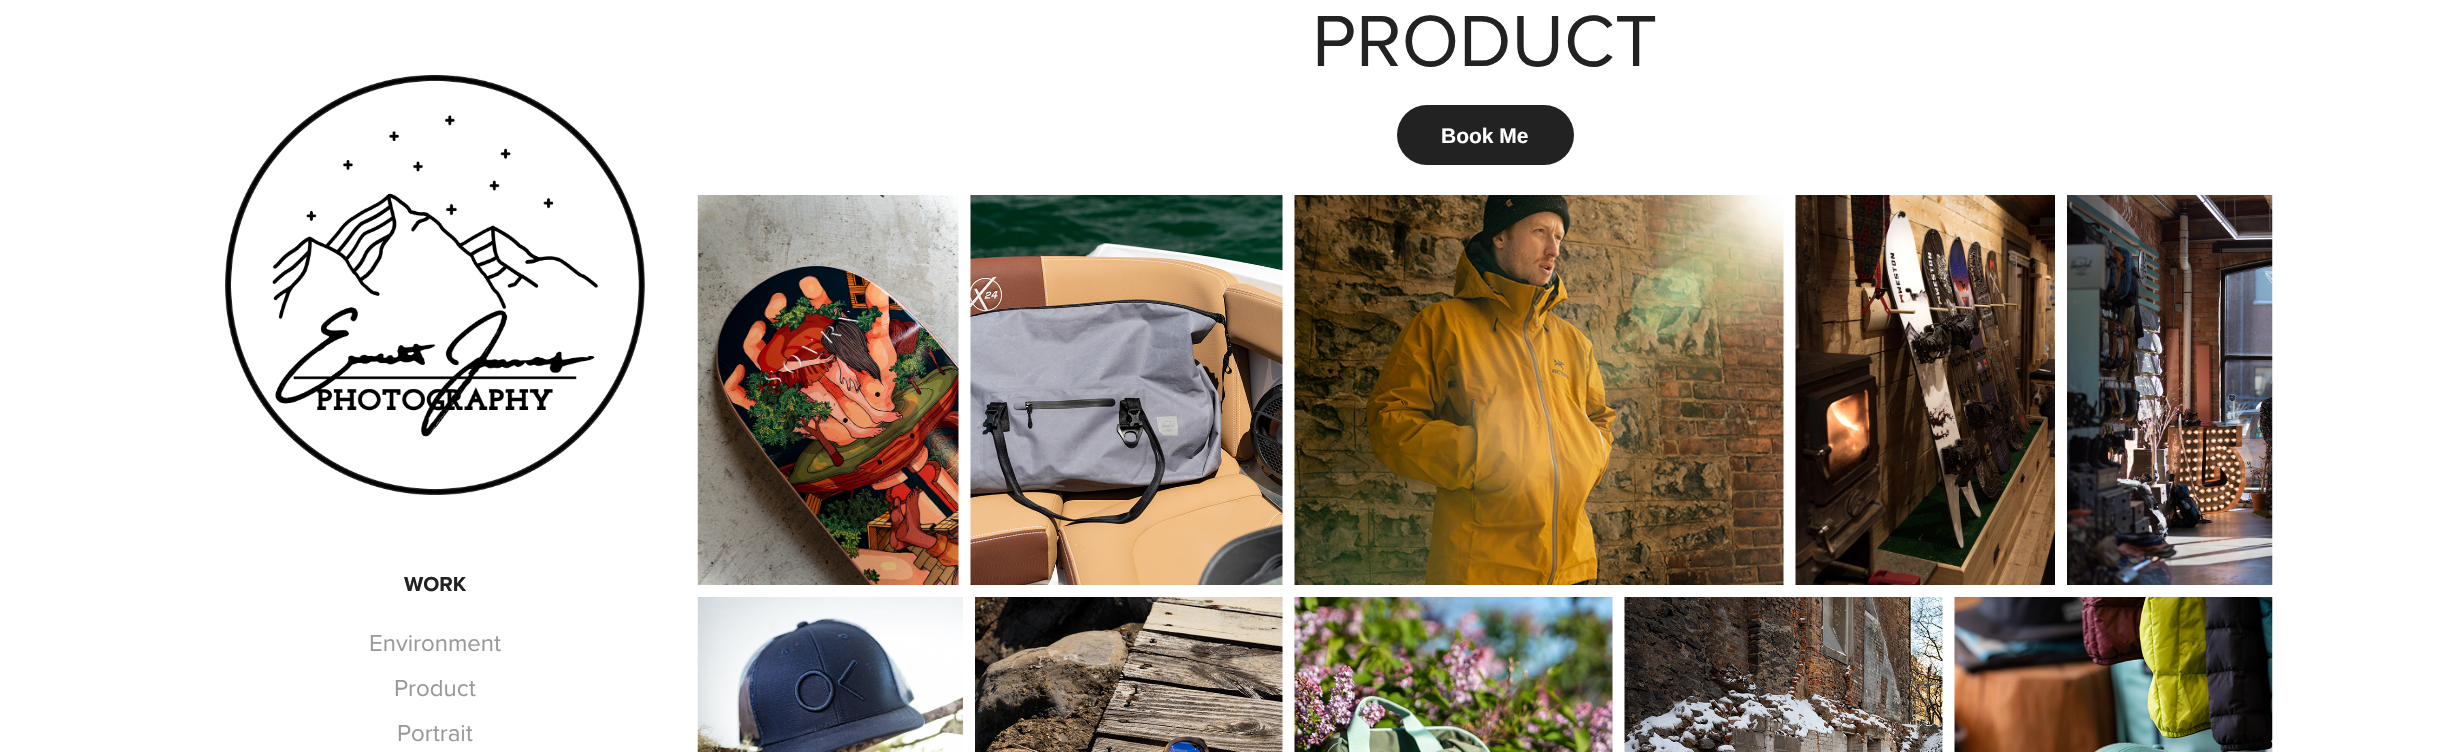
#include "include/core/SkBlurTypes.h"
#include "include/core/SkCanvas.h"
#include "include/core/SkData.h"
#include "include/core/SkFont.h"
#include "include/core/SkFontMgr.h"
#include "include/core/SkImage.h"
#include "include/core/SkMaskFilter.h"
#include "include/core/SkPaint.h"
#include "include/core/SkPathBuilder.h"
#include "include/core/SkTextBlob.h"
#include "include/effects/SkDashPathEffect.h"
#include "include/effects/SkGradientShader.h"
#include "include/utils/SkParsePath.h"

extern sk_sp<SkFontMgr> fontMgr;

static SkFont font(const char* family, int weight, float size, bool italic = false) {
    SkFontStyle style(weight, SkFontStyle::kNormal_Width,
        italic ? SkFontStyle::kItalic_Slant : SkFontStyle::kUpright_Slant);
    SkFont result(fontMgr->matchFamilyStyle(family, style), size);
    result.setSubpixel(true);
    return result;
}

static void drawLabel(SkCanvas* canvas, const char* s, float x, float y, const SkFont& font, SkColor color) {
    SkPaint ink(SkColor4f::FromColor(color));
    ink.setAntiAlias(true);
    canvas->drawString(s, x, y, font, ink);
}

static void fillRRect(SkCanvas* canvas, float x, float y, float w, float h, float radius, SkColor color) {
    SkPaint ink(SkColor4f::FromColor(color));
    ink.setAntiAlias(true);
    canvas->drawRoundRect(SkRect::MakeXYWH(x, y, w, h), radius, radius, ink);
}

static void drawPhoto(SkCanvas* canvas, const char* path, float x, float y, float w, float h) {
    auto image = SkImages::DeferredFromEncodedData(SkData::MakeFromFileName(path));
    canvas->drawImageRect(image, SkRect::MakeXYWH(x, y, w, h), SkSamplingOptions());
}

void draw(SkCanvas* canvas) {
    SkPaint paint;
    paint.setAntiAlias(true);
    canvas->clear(0xFFFFFFFF);
    SkFont font1 = font("Proxima Nova", 400, 75);
    drawLabel(canvas, "PRODUCT", 1312, 66, font1, 0xFF222222);
    fillRRect(canvas, 1397, 105, 177, 60, 30, 0xFF222222);
    SkFont font2 = font("Liberation Sans", 700, 21);
    drawLabel(canvas, "Book Me", 1441, 143, font2, 0xFFFFFFFF);
    drawPhoto(canvas, "assets/img1.png", 697, 195, 262, 390);
    drawPhoto(canvas, "assets/img2.png", 970, 195, 313, 390);
    drawPhoto(canvas, "assets/img3.png", 1294, 195, 490, 390);
    drawPhoto(canvas, "assets/img4.png", 1795, 195, 260, 390);
    drawPhoto(canvas, "assets/img5.png", 2067, 195, 206, 390);
    drawPhoto(canvas, "assets/img6.png", 697, 597, 266, 155);
    drawPhoto(canvas, "assets/img7.png", 975, 597, 308, 155);
    drawPhoto(canvas, "assets/img8.png", 1294, 597, 319, 155);
    drawPhoto(canvas, "assets/img9.png", 1624, 597, 319, 155);
    drawPhoto(canvas, "assets/img10.png", 1954, 597, 319, 155);
    drawPhoto(canvas, "assets/img11.png", 225, 75, 420, 420);
    SkFont font3 = font("Proxima Nova", 700, 21);
    drawLabel(canvas, "WORK", 404, 591, font3, 0xFF222222);
    SkFont font4 = font("Proxima Nova", 400, 24);
    drawLabel(canvas, "Environment", 369, 651, font4, 0xFF999999);
    drawLabel(canvas, "Product", 394, 696, font4, 0xFF999999);
    drawLabel(canvas, "Portrait", 397, 741, font4, 0xFF999999);
}
